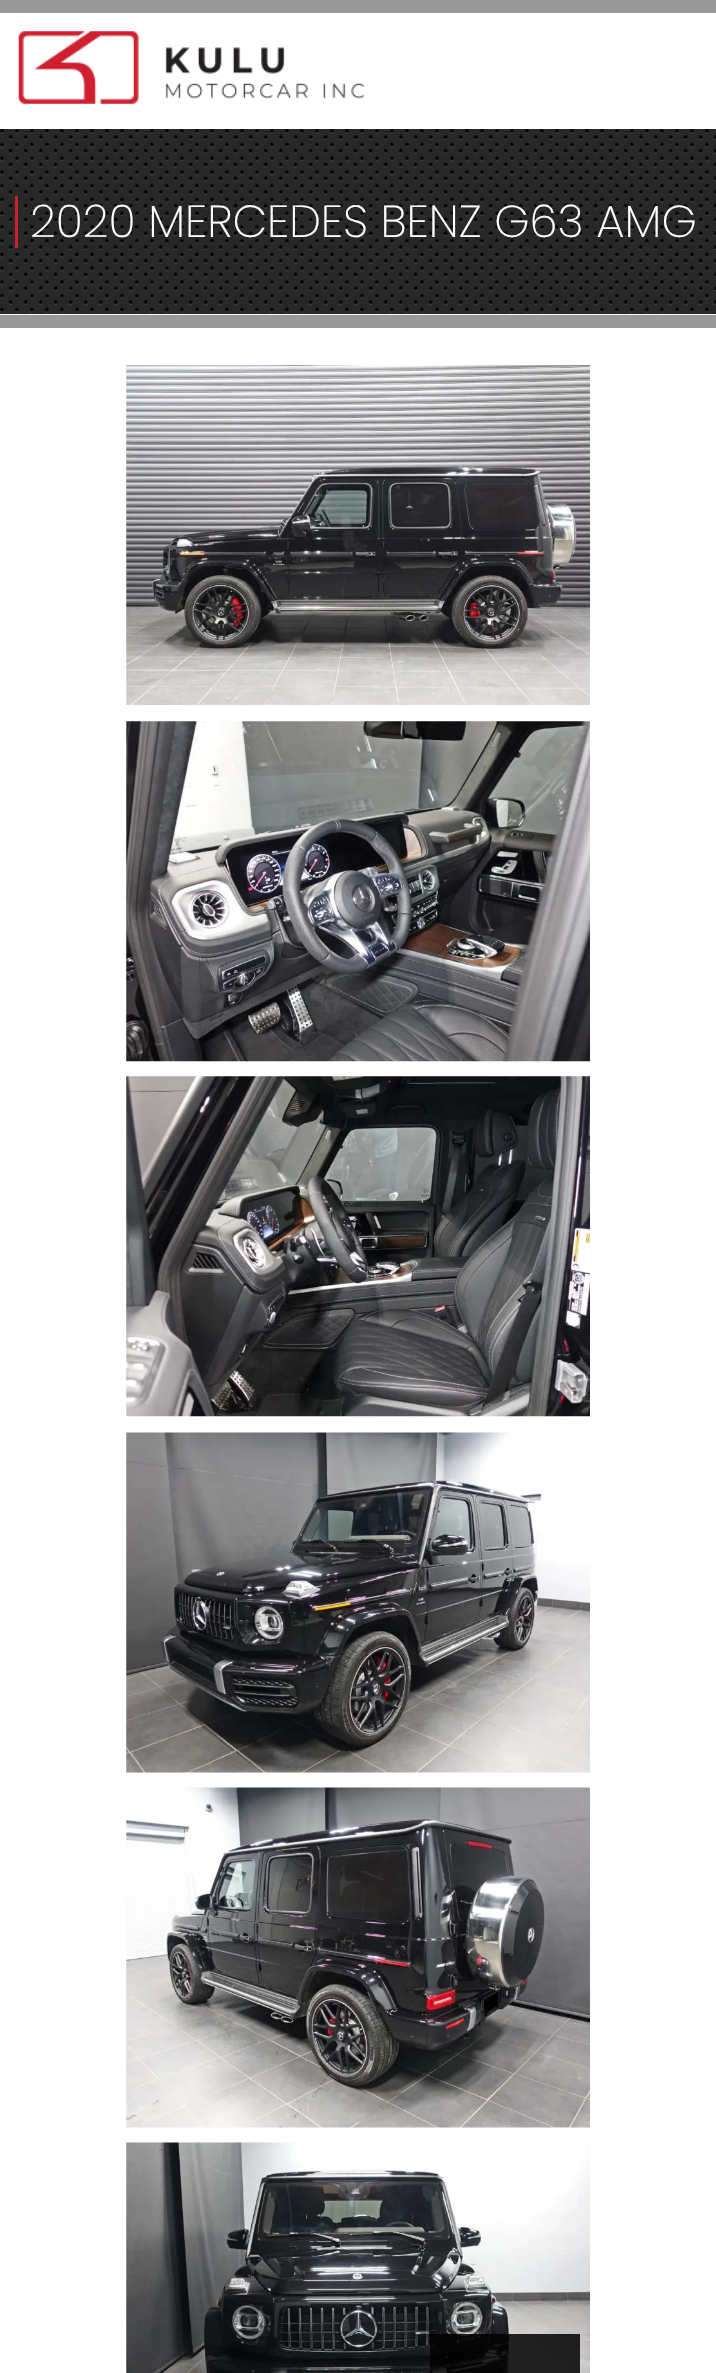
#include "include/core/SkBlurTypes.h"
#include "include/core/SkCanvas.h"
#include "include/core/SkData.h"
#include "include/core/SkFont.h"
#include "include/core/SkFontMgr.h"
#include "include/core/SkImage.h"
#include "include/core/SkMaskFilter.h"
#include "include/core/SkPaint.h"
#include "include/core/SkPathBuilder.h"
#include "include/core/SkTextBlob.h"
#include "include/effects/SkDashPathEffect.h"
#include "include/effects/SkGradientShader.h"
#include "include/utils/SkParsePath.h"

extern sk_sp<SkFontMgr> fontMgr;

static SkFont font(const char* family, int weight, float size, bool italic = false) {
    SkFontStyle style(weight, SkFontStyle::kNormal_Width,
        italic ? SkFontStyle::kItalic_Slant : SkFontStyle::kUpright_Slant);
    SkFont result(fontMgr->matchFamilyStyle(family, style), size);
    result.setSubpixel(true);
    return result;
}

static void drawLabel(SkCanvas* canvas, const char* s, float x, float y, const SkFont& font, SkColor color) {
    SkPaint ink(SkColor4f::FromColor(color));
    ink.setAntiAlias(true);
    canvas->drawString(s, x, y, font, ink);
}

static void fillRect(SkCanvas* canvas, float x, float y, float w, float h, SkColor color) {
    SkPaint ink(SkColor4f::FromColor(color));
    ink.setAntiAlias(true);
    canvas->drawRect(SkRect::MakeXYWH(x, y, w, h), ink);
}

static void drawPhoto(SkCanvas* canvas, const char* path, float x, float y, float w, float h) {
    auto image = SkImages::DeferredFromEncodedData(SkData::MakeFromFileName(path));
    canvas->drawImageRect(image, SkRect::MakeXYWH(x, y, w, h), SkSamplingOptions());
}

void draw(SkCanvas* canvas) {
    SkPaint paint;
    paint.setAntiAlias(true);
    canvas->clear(0xFFFFFFFF);
    fillRect(canvas, 0, 0, 716, 13, 0xFF999999);
    fillRect(canvas, 0, 315, 716, 13, 0xFF999999);
    drawPhoto(canvas, "assets/img1.png", 18, 31, 346, 73);
    drawPhoto(canvas, "assets/img2.png", 0, 129, 716, 185);
    fillRect(canvas, 15, 196, 3, 52, 0xFFCE202F);
    SkFont font1 = font("Poppins", 200, 45);
    drawLabel(canvas, "2020 MERCEDES BENZ G63 AMG", 30, 237, font1, 0xFFFFFFFF);
    drawPhoto(canvas, "assets/img3.png", 126, 365, 464, 340);
    drawPhoto(canvas, "assets/img4.png", 126, 721, 464, 341);
    drawPhoto(canvas, "assets/img5.png", 126, 1076, 464, 341);
    drawPhoto(canvas, "assets/img6.png", 126, 1432, 464, 341);
    drawPhoto(canvas, "assets/img7.png", 126, 1787, 464, 341);
    drawPhoto(canvas, "assets/img8.png", 126, 2142, 464, 231);
    fillRect(canvas, 430, 2334, 150, 39, 0xD9000000);
}
